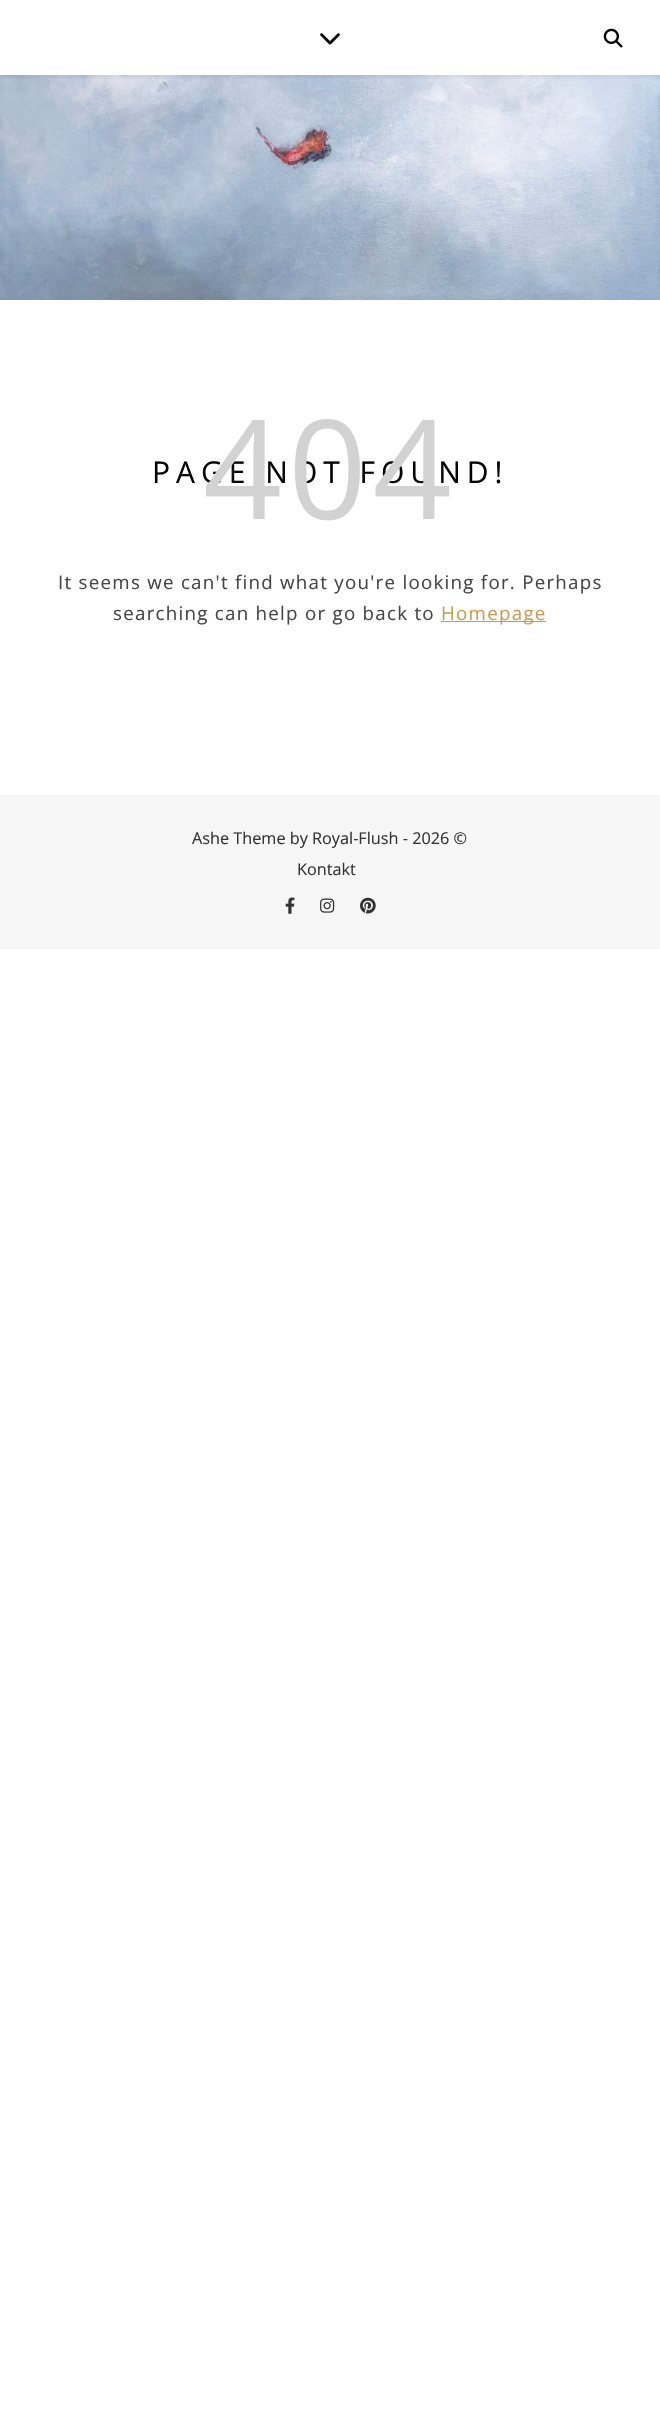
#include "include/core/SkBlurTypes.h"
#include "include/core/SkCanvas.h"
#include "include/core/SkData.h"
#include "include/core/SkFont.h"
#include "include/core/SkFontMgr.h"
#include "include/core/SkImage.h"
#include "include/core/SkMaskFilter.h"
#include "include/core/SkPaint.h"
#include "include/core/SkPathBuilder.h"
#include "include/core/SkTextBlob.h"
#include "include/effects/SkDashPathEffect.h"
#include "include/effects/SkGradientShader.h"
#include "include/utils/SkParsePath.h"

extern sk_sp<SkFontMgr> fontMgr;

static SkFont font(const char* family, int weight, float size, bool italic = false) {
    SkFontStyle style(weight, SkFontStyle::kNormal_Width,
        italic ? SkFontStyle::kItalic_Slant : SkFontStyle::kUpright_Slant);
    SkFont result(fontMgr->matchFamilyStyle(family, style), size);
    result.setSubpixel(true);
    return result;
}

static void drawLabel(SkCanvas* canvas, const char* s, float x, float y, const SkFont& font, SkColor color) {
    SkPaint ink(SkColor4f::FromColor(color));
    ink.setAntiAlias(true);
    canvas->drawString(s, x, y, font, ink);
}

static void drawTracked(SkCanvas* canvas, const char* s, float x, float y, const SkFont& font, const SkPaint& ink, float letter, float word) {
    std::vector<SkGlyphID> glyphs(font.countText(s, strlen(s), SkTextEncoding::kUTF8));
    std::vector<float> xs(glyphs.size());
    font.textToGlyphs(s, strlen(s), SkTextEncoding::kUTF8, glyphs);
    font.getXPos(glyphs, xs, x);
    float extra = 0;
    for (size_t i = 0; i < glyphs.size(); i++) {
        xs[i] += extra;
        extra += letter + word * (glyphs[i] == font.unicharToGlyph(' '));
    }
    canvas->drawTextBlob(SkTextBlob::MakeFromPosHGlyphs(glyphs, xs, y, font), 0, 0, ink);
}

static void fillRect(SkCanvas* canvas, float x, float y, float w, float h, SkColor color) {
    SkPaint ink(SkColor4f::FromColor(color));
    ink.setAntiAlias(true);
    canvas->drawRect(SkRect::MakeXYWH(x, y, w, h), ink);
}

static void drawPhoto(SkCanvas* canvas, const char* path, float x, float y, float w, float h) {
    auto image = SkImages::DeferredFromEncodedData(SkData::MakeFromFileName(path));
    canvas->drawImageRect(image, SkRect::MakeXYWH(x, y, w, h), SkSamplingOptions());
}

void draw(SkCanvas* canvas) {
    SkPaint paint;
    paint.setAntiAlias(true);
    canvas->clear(0xFFFFFFFF);
    drawPhoto(canvas, "assets/img1.png", 0, 75, 660, 225);
    canvas->save();
    canvas->clipRect(SkRect::MakeXYWH(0, 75, 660, 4));
    paint.setColor(0x1A000000);
    paint.setMaskFilter(SkMaskFilter::MakeBlur(kNormal_SkBlurStyle, 3));
    canvas->drawRect(SkRect::MakeXYWH(0, 1, 660, 75), paint);
    paint.setMaskFilter(nullptr);
    canvas->restore();
    drawPhoto(canvas, "assets/img2.png", 320, 33, 20, 12);
    drawPhoto(canvas, "assets/img3.png", 603, 28, 20, 20);
    SkFont font1 = font("Open Sans", 400, 30);
    paint.setColor(0xFF030303);
    drawTracked(canvas, "PAGE NOT FOUND!", 152, 483, font1, paint, 6, 0);
    SkFont font2 = font("Open Sans", 400, 138);
    paint.setColor(0xFFD2D2D2);
    drawTracked(canvas, "404", 203, 519, font2, paint, 6, 0);
    SkFont font3 = font("Open Sans", 400, 18.75f);
    paint.setColor(0xFF464646);
    drawTracked(canvas, "It seems we can't find what you're looking for. Perhaps", 58, 589, font3, paint, 1.25f, 0);
    drawTracked(canvas, "searching can help or go back to", 113, 620, font3, paint, 1.25f, 0);
    fillRect(canvas, 441, 621, 105, 1, 0xFFCA9B52);
    paint.setColor(0xFFCA9B52);
    drawTracked(canvas, "Homepage", 441, 620, font3, paint, 1.25f, 0);
    fillRect(canvas, 0, 795, 660, 154, 0xFFF6F6F6);
    SkFont font4 = font("Open Sans", 400, 16.25f);
    drawLabel(canvas, "Ashe Theme by Royal-Flush - 2026 ©", 192, 844, font4, 0xFF333333);
    drawLabel(canvas, "Kontakt", 297, 875, font4, 0xFF333333);
    drawPhoto(canvas, "assets/img4.png", 285, 897, 10, 17);
    drawPhoto(canvas, "assets/img5.png", 320, 898, 15, 15);
    drawPhoto(canvas, "assets/img6.png", 360, 897, 16, 17);
}
